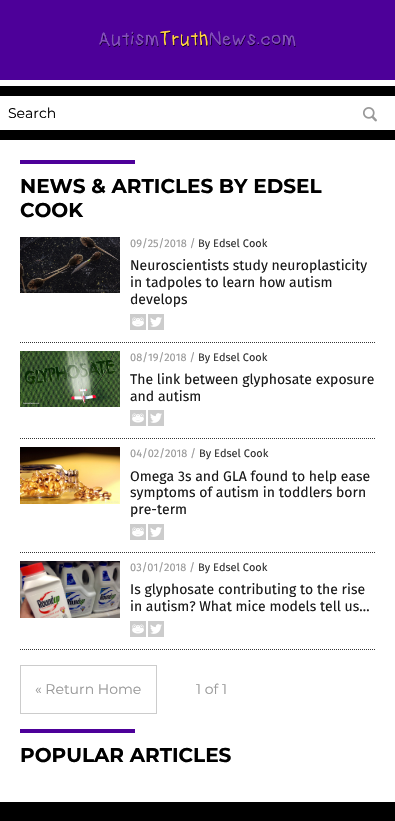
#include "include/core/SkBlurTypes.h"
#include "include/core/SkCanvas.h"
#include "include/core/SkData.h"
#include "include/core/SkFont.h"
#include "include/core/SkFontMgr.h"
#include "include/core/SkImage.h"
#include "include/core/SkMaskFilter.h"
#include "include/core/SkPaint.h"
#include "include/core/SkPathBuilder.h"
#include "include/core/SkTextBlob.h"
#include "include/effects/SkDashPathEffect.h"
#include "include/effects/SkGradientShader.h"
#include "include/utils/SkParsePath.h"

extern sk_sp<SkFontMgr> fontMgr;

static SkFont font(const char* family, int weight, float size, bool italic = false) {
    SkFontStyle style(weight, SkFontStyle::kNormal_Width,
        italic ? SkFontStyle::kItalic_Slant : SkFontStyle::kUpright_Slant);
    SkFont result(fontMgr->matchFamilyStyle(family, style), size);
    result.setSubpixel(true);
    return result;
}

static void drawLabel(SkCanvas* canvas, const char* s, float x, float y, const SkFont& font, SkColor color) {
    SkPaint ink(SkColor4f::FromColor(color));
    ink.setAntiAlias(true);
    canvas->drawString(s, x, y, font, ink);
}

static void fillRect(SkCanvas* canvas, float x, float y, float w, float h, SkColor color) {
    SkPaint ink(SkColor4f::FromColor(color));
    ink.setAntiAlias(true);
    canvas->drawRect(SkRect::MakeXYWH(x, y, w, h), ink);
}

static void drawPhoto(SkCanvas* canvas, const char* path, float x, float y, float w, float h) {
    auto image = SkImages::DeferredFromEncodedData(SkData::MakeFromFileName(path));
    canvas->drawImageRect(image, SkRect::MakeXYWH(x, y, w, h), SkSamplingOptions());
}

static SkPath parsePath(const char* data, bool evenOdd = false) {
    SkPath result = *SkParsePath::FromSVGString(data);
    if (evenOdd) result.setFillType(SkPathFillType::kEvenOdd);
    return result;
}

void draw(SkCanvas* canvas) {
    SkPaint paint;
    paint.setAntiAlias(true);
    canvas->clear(0xFF000000);
    fillRect(canvas, 0, 0, 395, 80, 0xFF4D0099);
    drawPhoto(canvas, "assets/img1.png", 99, 30, 197, 18);
    fillRect(canvas, 0, 80, 395, 6, 0xFFFFFFFF);
    fillRect(canvas, 0, 96, 395, 34, 0xFFFFFFFF);
    SkFont font1 = font("Montserrat", 400, 14);
    drawLabel(canvas, "Search", 8, 118, font1, 0xFF000000);
    drawPhoto(canvas, "assets/img2.png", 363, 107, 14, 15);
    fillRect(canvas, 0, 140, 395, 662, 0xFFFFFFFF);
    fillRect(canvas, 20, 160, 115, 4, 0xFF4D0099);
    SkFont font2 = font("Montserrat", 700, 20);
    drawLabel(canvas, "NEWS & ARTICLES BY EDSEL", 20, 193, font2, 0xFF000000);
    drawLabel(canvas, "COOK", 20, 217, font2, 0xFF000000);
    paint.setStroke(true);
    paint.setStrokeWidth(1);
    paint.setColor(0xFF343434);
    paint.setPathEffect(SkDashPathEffect::Make({{1, 1}}, 0));
    canvas->drawPath(parsePath("M20 342.5H375"), paint);
    paint.setPathEffect(nullptr);
    drawPhoto(canvas, "assets/img3.png", 20, 237, 100, 56);
    SkFont font3 = font("Fira Sans", 400, 11);
    drawLabel(canvas, "09/25/2018 /", 130, 247, font3, 0xFF999999);
    drawLabel(canvas, "By Edsel Cook", 198, 247, font3, 0xFF333333);
    SkFont font4 = font("Fira Sans", 400, 14);
    drawLabel(canvas, "Neuroscientists study neuroplasticity", 130, 270, font4, 0xFF1A1A1A);
    drawLabel(canvas, "in tadpoles to learn how autism", 130, 287, font4, 0xFF1A1A1A);
    drawLabel(canvas, "develops", 130, 304, font4, 0xFF1A1A1A);
    drawPhoto(canvas, "assets/img4.png", 130, 314, 16, 16);
    drawPhoto(canvas, "assets/img5.png", 148, 314, 16, 16);
    paint.setPathEffect(SkDashPathEffect::Make({{1, 1}}, 0));
    canvas->drawPath(parsePath("M20 438.5H375"), paint);
    paint.setPathEffect(nullptr);
    drawPhoto(canvas, "assets/img6.png", 20, 351, 100, 56);
    drawLabel(canvas, "08/19/2018 /", 130, 361, font3, 0xFF999999);
    drawLabel(canvas, "By Edsel Cook", 198, 361, font3, 0xFF333333);
    drawLabel(canvas, "The link between glyphosate exposure", 130, 384, font4, 0xFF1A1A1A);
    drawLabel(canvas, "and autism", 130, 401, font4, 0xFF1A1A1A);
    drawPhoto(canvas, "assets/img4.png", 130, 410, 16, 16);
    drawPhoto(canvas, "assets/img5.png", 148, 410, 16, 16);
    paint.setPathEffect(SkDashPathEffect::Make({{1, 1}}, 0));
    canvas->drawPath(parsePath("M20 552.5H375"), paint);
    paint.setPathEffect(nullptr);
    drawPhoto(canvas, "assets/img7.png", 20, 447, 100, 57);
    drawLabel(canvas, "04/02/2018 /", 130, 457, font3, 0xFF999999);
    drawLabel(canvas, "By Edsel Cook", 199, 457, font3, 0xFF333333);
    drawLabel(canvas, "Omega 3s and GLA found to help ease", 130, 481, font4, 0xFF1A1A1A);
    drawLabel(canvas, "symptoms of autism in toddlers born", 130, 497, font4, 0xFF1A1A1A);
    drawLabel(canvas, "pre-term", 130, 514, font4, 0xFF1A1A1A);
    drawPhoto(canvas, "assets/img4.png", 130, 524, 16, 16);
    drawPhoto(canvas, "assets/img5.png", 148, 524, 16, 16);
    paint.setPathEffect(SkDashPathEffect::Make({{1, 1}}, 0));
    canvas->drawPath(parsePath("M20 649.5H375"), paint);
    paint.setPathEffect(nullptr);
    drawPhoto(canvas, "assets/img8.png", 20, 561, 100, 57);
    drawLabel(canvas, "03/01/2018 /", 130, 571, font3, 0xFF999999);
    drawLabel(canvas, "By Edsel Cook", 198, 571, font3, 0xFF333333);
    drawLabel(canvas, "Is glyphosate contributing to the rise", 130, 594, font4, 0xFF1A1A1A);
    drawLabel(canvas, "in autism? What mice models tell us…", 130, 611, font4, 0xFF1A1A1A);
    drawPhoto(canvas, "assets/img4.png", 130, 621, 16, 16);
    drawPhoto(canvas, "assets/img5.png", 148, 621, 16, 16);
    paint.setColor(0xFFCCCCCC);
    canvas->drawRect(SkRect::MakeXYWH(20.5f, 665.5f, 136, 48), paint);
    drawLabel(canvas, "« Return Home", 35, 694, font1, 0xFF999999);
    drawLabel(canvas, "1 of 1", 196, 694, font1, 0xFF999999);
    fillRect(canvas, 20, 729, 115, 4, 0xFF4D0099);
    drawLabel(canvas, "POPULAR ARTICLES", 20, 762, font2, 0xFF000000);
}
